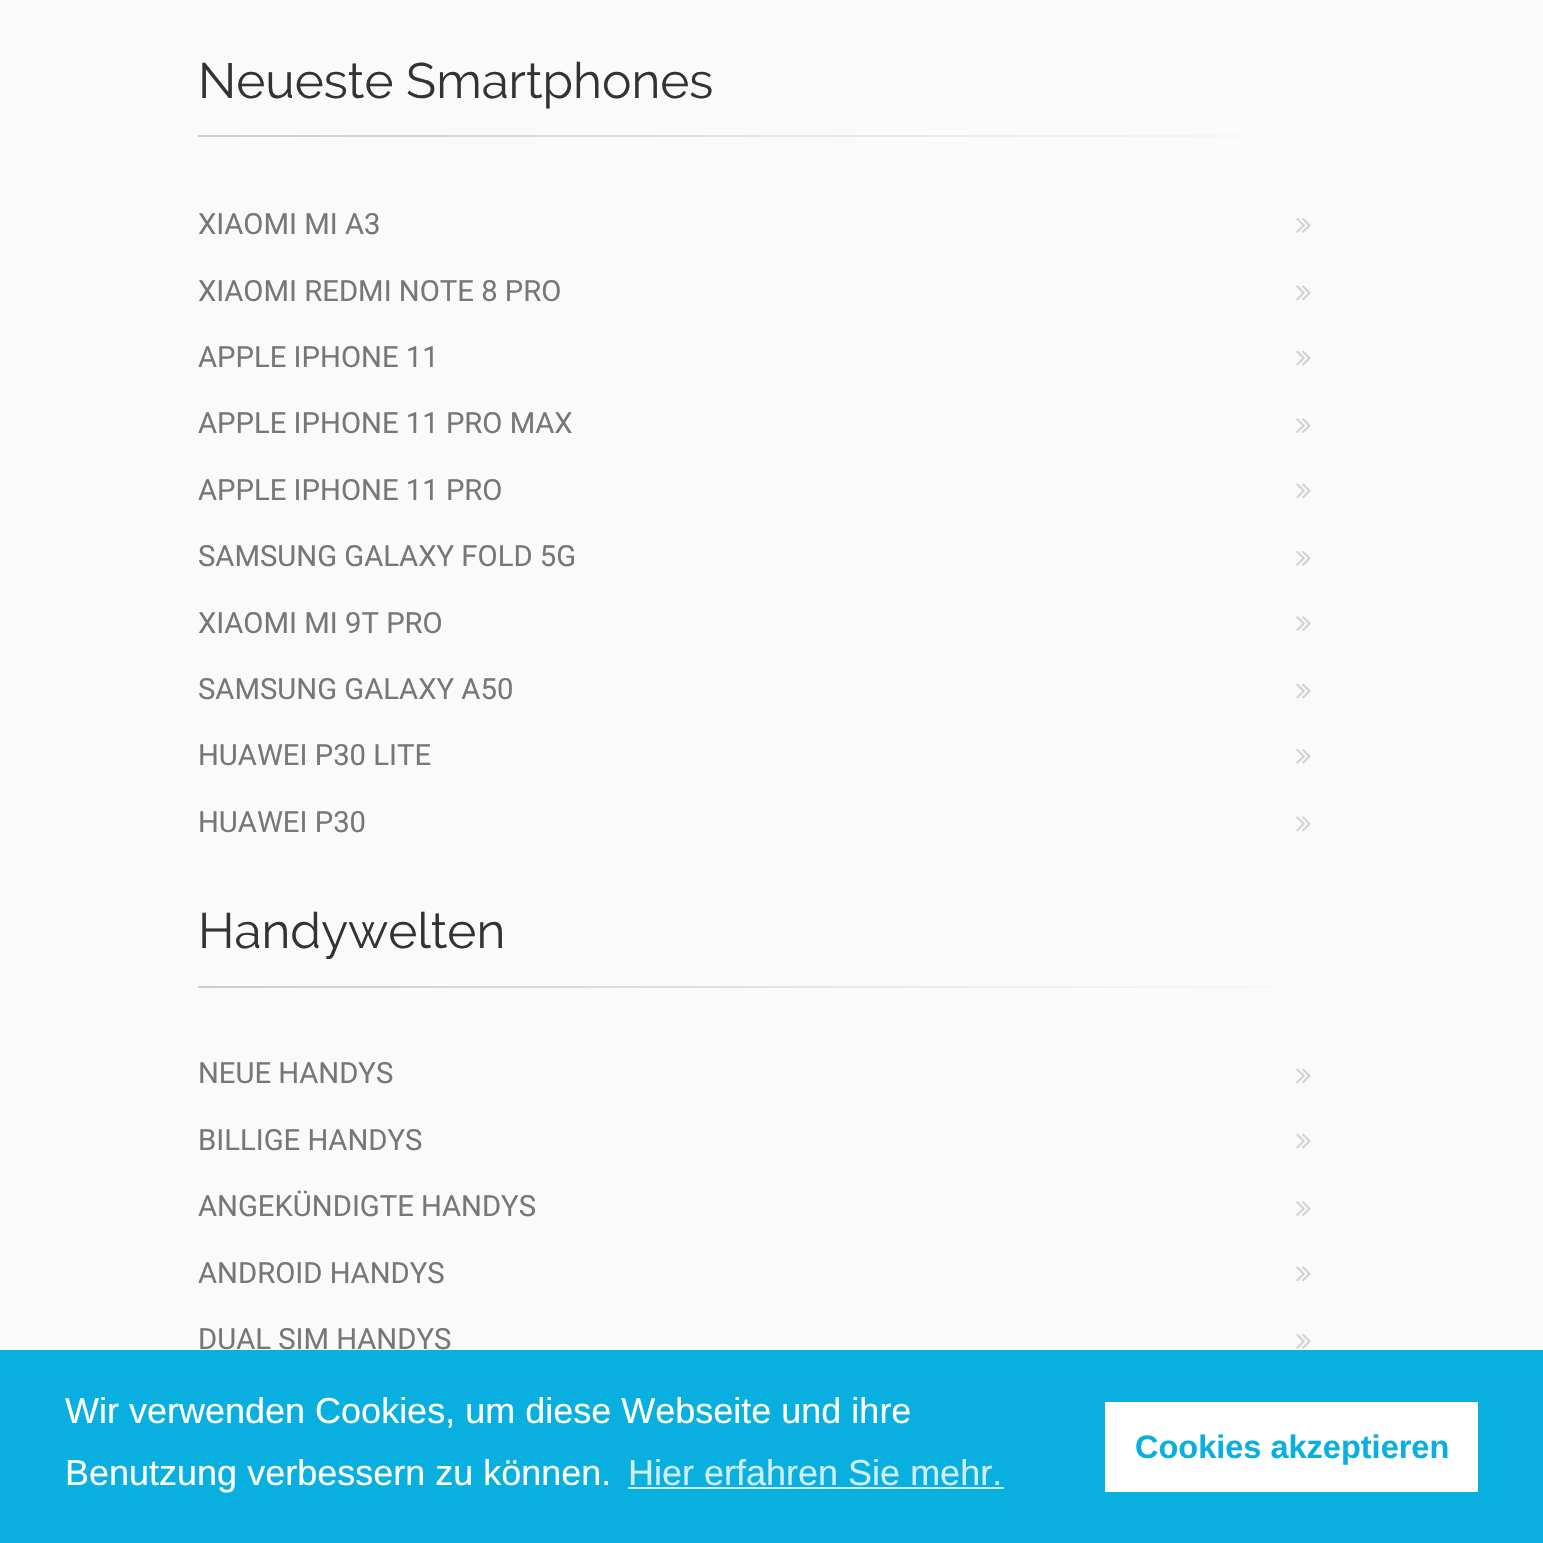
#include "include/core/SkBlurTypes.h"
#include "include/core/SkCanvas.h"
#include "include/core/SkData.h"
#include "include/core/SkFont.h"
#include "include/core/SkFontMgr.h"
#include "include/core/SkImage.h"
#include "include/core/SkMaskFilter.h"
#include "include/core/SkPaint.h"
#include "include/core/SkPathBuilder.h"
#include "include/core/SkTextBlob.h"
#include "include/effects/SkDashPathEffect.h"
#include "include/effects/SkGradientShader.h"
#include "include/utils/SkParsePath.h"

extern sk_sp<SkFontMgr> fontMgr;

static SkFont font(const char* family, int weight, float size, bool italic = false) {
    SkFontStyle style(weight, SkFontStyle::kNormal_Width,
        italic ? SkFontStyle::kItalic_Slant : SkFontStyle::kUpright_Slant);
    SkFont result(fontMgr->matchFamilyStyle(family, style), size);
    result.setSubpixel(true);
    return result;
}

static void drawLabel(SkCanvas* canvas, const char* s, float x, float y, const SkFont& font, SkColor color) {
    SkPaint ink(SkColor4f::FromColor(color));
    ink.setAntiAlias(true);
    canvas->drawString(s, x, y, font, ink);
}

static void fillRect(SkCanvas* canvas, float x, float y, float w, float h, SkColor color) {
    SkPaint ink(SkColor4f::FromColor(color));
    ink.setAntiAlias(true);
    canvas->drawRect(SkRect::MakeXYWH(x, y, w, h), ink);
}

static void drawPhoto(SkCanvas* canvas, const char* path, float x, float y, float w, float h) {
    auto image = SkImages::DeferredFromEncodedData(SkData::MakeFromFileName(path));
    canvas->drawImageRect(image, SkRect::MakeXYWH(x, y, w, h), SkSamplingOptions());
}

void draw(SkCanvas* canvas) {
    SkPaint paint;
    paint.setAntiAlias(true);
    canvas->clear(0xFFFAFAFA);
    SkFont font1 = font("Raleway", 400, 49.5f);
    drawLabel(canvas, "Neueste Smartphones", 198, 98, font1, 0xFF333333);
    {
        const SkColor colors[] = {0xFFCDCDCD, 0xFFDCDCDC, 0xFFEEEEEE, 0xFFFAFAFA};
        const float stops[] = {0, 0.35f, 0.7f, 1};
        const SkPoint ends[] = {{198, 136}, {1346, 136}};
        paint.setShader(SkGradientShader::MakeLinear(ends, colors, stops, 4, SkTileMode::kClamp));
        paint.setAlpha(255);
    }
    canvas->drawRect(SkRect::MakeXYWH(198, 135, 1076, 2), paint);
    SkFont font2 = font("Roboto", 400, 29.25f);
    drawLabel(canvas, "XIAOMI MI A3", 198, 234, font2, 0xFF777777);
    drawPhoto(canvas, "assets/img1.png", 1296, 218, 15, 15);
    drawLabel(canvas, "XIAOMI REDMI NOTE 8 PRO", 198, 301, font2, 0xFF777777);
    drawPhoto(canvas, "assets/img2.png", 1296, 285, 15, 16);
    drawLabel(canvas, "APPLE IPHONE 11", 198, 367, font2, 0xFF777777);
    drawPhoto(canvas, "assets/img3.png", 1296, 350, 15, 16);
    drawLabel(canvas, "APPLE IPHONE 11 PRO MAX", 198, 433, font2, 0xFF777777);
    drawPhoto(canvas, "assets/img4.png", 1296, 418, 15, 15);
    drawLabel(canvas, "APPLE IPHONE 11 PRO", 198, 500, font2, 0xFF777777);
    drawPhoto(canvas, "assets/img2.png", 1296, 483, 15, 16);
    drawLabel(canvas, "SAMSUNG GALAXY FOLD 5G", 198, 566, font2, 0xFF777777);
    drawPhoto(canvas, "assets/img1.png", 1296, 551, 15, 15);
    drawLabel(canvas, "XIAOMI MI 9T PRO", 198, 633, font2, 0xFF777777);
    drawPhoto(canvas, "assets/img4.png", 1296, 616, 15, 15);
    drawLabel(canvas, "SAMSUNG GALAXY A50", 198, 699, font2, 0xFF777777);
    drawPhoto(canvas, "assets/img3.png", 1296, 683, 15, 16);
    drawLabel(canvas, "HUAWEI P30 LITE", 198, 765, font2, 0xFF777777);
    drawPhoto(canvas, "assets/img1.png", 1296, 749, 15, 15);
    drawLabel(canvas, "HUAWEI P30", 198, 832, font2, 0xFF777777);
    drawPhoto(canvas, "assets/img2.png", 1296, 816, 15, 16);
    drawLabel(canvas, "Handywelten", 198, 948, font1, 0xFF333333);
    {
        const SkColor colors[] = {0xFFCDCDCD, 0xFFDCDCDC, 0xFFEEEEEE, 0xFFFAFAFA};
        const float stops[] = {0, 0.35f, 0.7f, 1};
        const SkPoint ends[] = {{198, 987}, {1346, 987}};
        paint.setShader(SkGradientShader::MakeLinear(ends, colors, stops, 4, SkTileMode::kClamp));
        paint.setAlpha(255);
    }
    canvas->drawRect(SkRect::MakeXYWH(198, 986, 1076, 2), paint);
    drawLabel(canvas, "NEUE HANDYS", 198, 1083, font2, 0xFF777777);
    drawPhoto(canvas, "assets/img2.png", 1296, 1068, 15, 16);
    drawLabel(canvas, "BILLIGE HANDYS", 198, 1150, font2, 0xFF777777);
    drawPhoto(canvas, "assets/img3.png", 1296, 1133, 15, 16);
    drawLabel(canvas, "ANGEKÜNDIGTE HANDYS", 198, 1216, font2, 0xFF777777);
    drawPhoto(canvas, "assets/img4.png", 1296, 1201, 15, 15);
    drawLabel(canvas, "ANDROID HANDYS", 198, 1283, font2, 0xFF777777);
    drawPhoto(canvas, "assets/img2.png", 1296, 1266, 15, 16);
    drawLabel(canvas, "DUAL SIM HANDYS", 198, 1349, font2, 0xFF777777);
    drawPhoto(canvas, "assets/img1.png", 1296, 1334, 15, 15);
    fillRect(canvas, 0, 1350, 1543, 193, 0xFF09AFDF);
    SkFont font3 = font("Liberation Sans", 400, 36);
    drawLabel(canvas, "Wir verwenden Cookies, um diese Webseite und ihre", 65, 1423, font3, 0xFFFFFFFF);
    drawLabel(canvas, "Benutzung verbessern zu können.", 65, 1485, font3, 0xFFFFFFFF);
    drawLabel(canvas, "Hier erfahren Sie mehr.", 628, 1485, font3, 0xFFCEEFF9);
    fillRect(canvas, 628, 1487, 376, 2, 0xFFCEEFF9);
    fillRect(canvas, 1105, 1402, 373, 90, 0xFFFFFFFF);
    SkFont font4 = font("Liberation Sans", 700, 32.5f);
    drawLabel(canvas, "Cookies akzeptieren", 1135, 1458, font4, 0xFF09AFDF);
}
